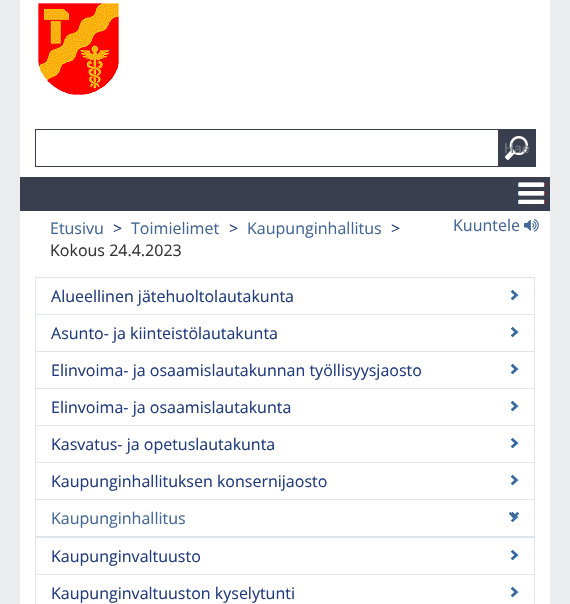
#include "include/core/SkBlurTypes.h"
#include "include/core/SkCanvas.h"
#include "include/core/SkData.h"
#include "include/core/SkFont.h"
#include "include/core/SkFontMgr.h"
#include "include/core/SkImage.h"
#include "include/core/SkMaskFilter.h"
#include "include/core/SkPaint.h"
#include "include/core/SkPathBuilder.h"
#include "include/core/SkTextBlob.h"
#include "include/effects/SkDashPathEffect.h"
#include "include/effects/SkGradientShader.h"
#include "include/utils/SkParsePath.h"

extern sk_sp<SkFontMgr> fontMgr;

static SkFont font(const char* family, int weight, float size, bool italic = false) {
    SkFontStyle style(weight, SkFontStyle::kNormal_Width,
        italic ? SkFontStyle::kItalic_Slant : SkFontStyle::kUpright_Slant);
    SkFont result(fontMgr->matchFamilyStyle(family, style), size);
    result.setSubpixel(true);
    return result;
}

static void drawLabel(SkCanvas* canvas, const char* s, float x, float y, const SkFont& font, SkColor color) {
    SkPaint ink(SkColor4f::FromColor(color));
    ink.setAntiAlias(true);
    canvas->drawString(s, x, y, font, ink);
}

static void fillRect(SkCanvas* canvas, float x, float y, float w, float h, SkColor color) {
    SkPaint ink(SkColor4f::FromColor(color));
    ink.setAntiAlias(true);
    canvas->drawRect(SkRect::MakeXYWH(x, y, w, h), ink);
}

static void drawPhoto(SkCanvas* canvas, const char* path, float x, float y, float w, float h) {
    auto image = SkImages::DeferredFromEncodedData(SkData::MakeFromFileName(path));
    canvas->drawImageRect(image, SkRect::MakeXYWH(x, y, w, h), SkSamplingOptions());
}

void draw(SkCanvas* canvas) {
    SkPaint paint;
    paint.setAntiAlias(true);
    canvas->clear(0xFFEAECEE);
    fillRect(canvas, 20, 0, 530, 177, 0xFFFFFFFF);
    fillRect(canvas, 20, 177, 492, 34, 0xFF393F4E);
    drawPhoto(canvas, "assets/img1.png", 512, 177, 38, 34);
    drawPhoto(canvas, "assets/img2.png", 38, 3, 81, 92);
    fillRect(canvas, 35, 129, 463, 1, 0xFF393F4E);
    fillRect(canvas, 35, 166, 463, 1, 0xFF393F4E);
    fillRect(canvas, 35, 129, 1, 38, 0xFF393F4E);
    fillRect(canvas, 498, 129, 38, 38, 0xFF393F4E);
    drawPhoto(canvas, "assets/img3.png", 505, 136, 23, 24);
    SkFont font1 = font("Liberation Sans", 400, 14);
    drawLabel(canvas, "Hae", 504, 153, font1, 0xFF737882);
    fillRect(canvas, 20, 211, 530, 393, 0xFFFFFFFF);
    SkFont font2 = font("Open Sans", 400, 16);
    drawLabel(canvas, "Etusivu", 50, 234, font2, 0xFF436699);
    drawLabel(canvas, ">", 113, 234, font2, 0xFF203A7F);
    drawLabel(canvas, "Toimielimet", 131, 234, font2, 0xFF436699);
    drawLabel(canvas, ">", 229, 234, font2, 0xFF203A7F);
    drawLabel(canvas, "Kaupunginhallitus", 247, 234, font2, 0xFF436699);
    drawLabel(canvas, ">", 391, 234, font2, 0xFF203A7F);
    drawLabel(canvas, "Kokous 24.4.2023", 50, 256, font2, 0xFF333333);
    drawLabel(canvas, "Kuuntele", 453, 231, font2, 0xFF436699);
    drawPhoto(canvas, "assets/img4.png", 524, 219, 15, 13);
    paint.setStroke(true);
    paint.setStrokeWidth(1);
    paint.setColor(0xFFE3E3E3);
    canvas->drawRect(SkRect::MakeXYWH(35.5f, 277.5f, 499, 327), paint);
    drawPhoto(canvas, "assets/img5.png", 511, 290, 8, 10);
    fillRect(canvas, 36, 314, 498, 1, 0xFFDFE7ED);
    drawPhoto(canvas, "assets/img6.png", 511, 290, 8, 10);
    drawLabel(canvas, "Alueellinen jätehuoltolautakunta", 51, 302, font2, 0xFF203A7F);
    drawPhoto(canvas, "assets/img5.png", 511, 327, 8, 10);
    fillRect(canvas, 36, 351, 498, 1, 0xFFDFE7ED);
    drawPhoto(canvas, "assets/img6.png", 511, 327, 8, 10);
    drawLabel(canvas, "Asunto- ja kiinteistölautakunta", 51, 339, font2, 0xFF203A7F);
    drawPhoto(canvas, "assets/img5.png", 511, 364, 8, 10);
    fillRect(canvas, 36, 388, 498, 1, 0xFFDFE7ED);
    drawPhoto(canvas, "assets/img6.png", 511, 364, 8, 10);
    drawLabel(canvas, "Elinvoima- ja osaamislautakunnan työllisyysjaosto", 51, 376, font2, 0xFF203A7F);
    drawPhoto(canvas, "assets/img5.png", 511, 401, 8, 10);
    fillRect(canvas, 36, 425, 498, 1, 0xFFDFE7ED);
    drawPhoto(canvas, "assets/img6.png", 511, 401, 8, 10);
    drawLabel(canvas, "Elinvoima- ja osaamislautakunta", 51, 413, font2, 0xFF203A7F);
    drawPhoto(canvas, "assets/img5.png", 511, 438, 8, 10);
    fillRect(canvas, 36, 462, 498, 1, 0xFFDFE7ED);
    drawPhoto(canvas, "assets/img6.png", 511, 438, 8, 10);
    drawLabel(canvas, "Kasvatus- ja opetuslautakunta", 51, 450, font2, 0xFF203A7F);
    drawPhoto(canvas, "assets/img5.png", 511, 475, 8, 10);
    fillRect(canvas, 36, 499, 498, 1, 0xFFDFE7ED);
    drawPhoto(canvas, "assets/img6.png", 511, 475, 8, 10);
    drawLabel(canvas, "Kaupunginhallituksen konsernijaosto", 51, 487, font2, 0xFF203A7F);
    drawPhoto(canvas, "assets/img5.png", 511, 512, 8, 10);
    fillRect(canvas, 36, 536, 498, 2, 0xFFDFE7ED);
    drawPhoto(canvas, "assets/img7.png", 509, 512, 10, 8);
    drawLabel(canvas, "Kaupunginhallitus", 51, 524, font2, 0xFF436699);
    drawPhoto(canvas, "assets/img5.png", 511, 550, 8, 10);
    fillRect(canvas, 36, 574, 498, 1, 0xFFDFE7ED);
    drawPhoto(canvas, "assets/img6.png", 511, 550, 8, 10);
    drawLabel(canvas, "Kaupunginvaltuusto", 51, 562, font2, 0xFF203A7F);
    drawPhoto(canvas, "assets/img5.png", 511, 587, 8, 10);
    drawPhoto(canvas, "assets/img6.png", 511, 587, 8, 10);
    drawLabel(canvas, "Kaupunginvaltuuston kyselytunti", 51, 599, font2, 0xFF203A7F);
}
